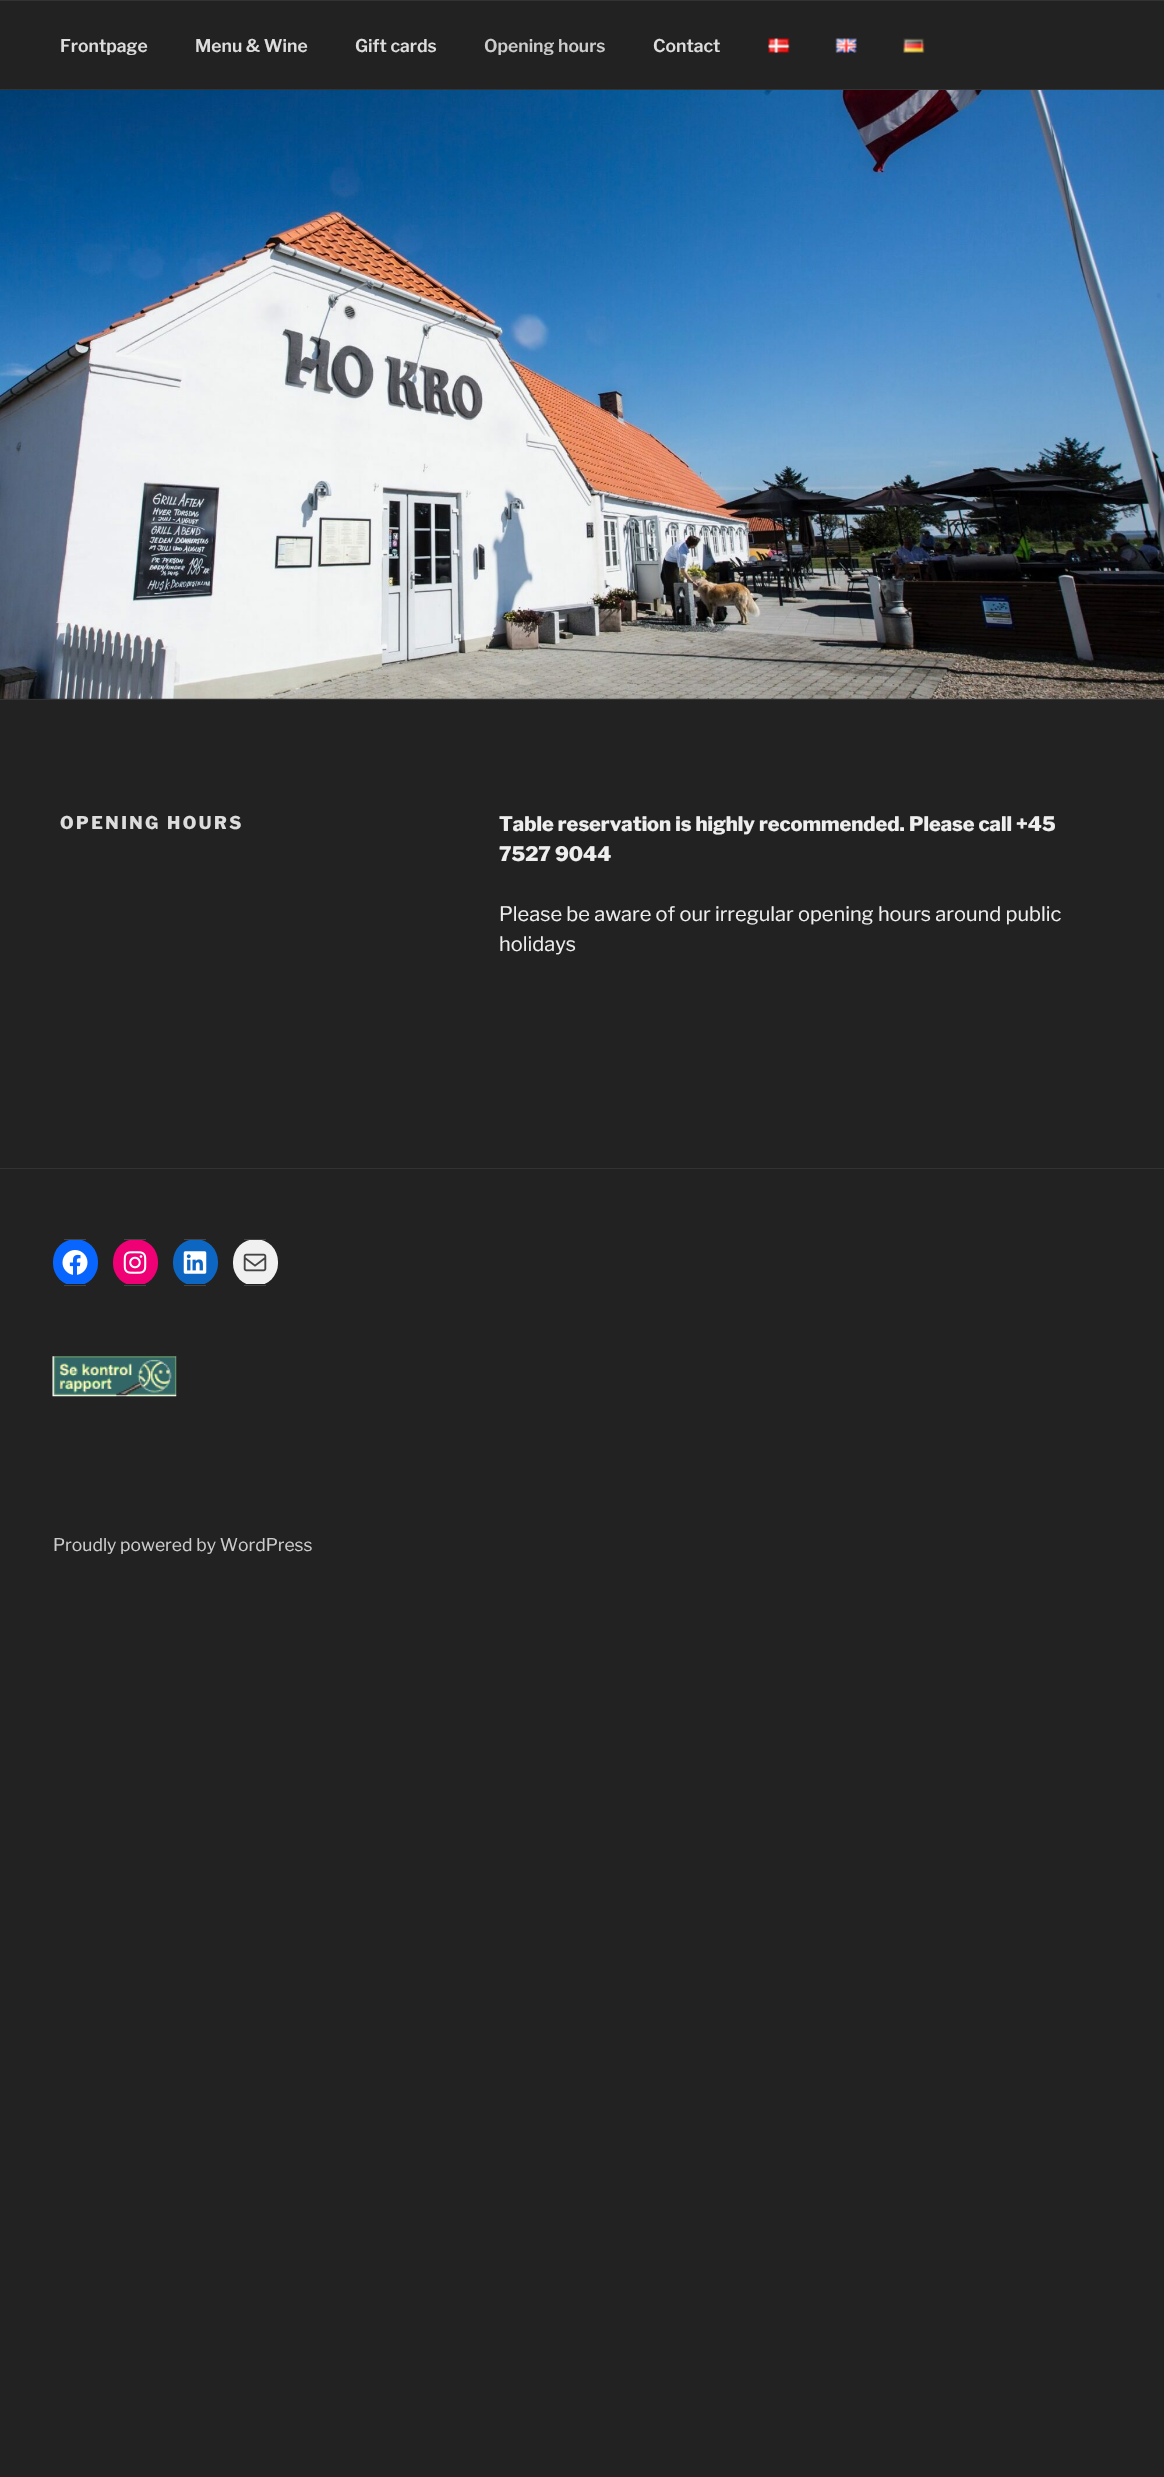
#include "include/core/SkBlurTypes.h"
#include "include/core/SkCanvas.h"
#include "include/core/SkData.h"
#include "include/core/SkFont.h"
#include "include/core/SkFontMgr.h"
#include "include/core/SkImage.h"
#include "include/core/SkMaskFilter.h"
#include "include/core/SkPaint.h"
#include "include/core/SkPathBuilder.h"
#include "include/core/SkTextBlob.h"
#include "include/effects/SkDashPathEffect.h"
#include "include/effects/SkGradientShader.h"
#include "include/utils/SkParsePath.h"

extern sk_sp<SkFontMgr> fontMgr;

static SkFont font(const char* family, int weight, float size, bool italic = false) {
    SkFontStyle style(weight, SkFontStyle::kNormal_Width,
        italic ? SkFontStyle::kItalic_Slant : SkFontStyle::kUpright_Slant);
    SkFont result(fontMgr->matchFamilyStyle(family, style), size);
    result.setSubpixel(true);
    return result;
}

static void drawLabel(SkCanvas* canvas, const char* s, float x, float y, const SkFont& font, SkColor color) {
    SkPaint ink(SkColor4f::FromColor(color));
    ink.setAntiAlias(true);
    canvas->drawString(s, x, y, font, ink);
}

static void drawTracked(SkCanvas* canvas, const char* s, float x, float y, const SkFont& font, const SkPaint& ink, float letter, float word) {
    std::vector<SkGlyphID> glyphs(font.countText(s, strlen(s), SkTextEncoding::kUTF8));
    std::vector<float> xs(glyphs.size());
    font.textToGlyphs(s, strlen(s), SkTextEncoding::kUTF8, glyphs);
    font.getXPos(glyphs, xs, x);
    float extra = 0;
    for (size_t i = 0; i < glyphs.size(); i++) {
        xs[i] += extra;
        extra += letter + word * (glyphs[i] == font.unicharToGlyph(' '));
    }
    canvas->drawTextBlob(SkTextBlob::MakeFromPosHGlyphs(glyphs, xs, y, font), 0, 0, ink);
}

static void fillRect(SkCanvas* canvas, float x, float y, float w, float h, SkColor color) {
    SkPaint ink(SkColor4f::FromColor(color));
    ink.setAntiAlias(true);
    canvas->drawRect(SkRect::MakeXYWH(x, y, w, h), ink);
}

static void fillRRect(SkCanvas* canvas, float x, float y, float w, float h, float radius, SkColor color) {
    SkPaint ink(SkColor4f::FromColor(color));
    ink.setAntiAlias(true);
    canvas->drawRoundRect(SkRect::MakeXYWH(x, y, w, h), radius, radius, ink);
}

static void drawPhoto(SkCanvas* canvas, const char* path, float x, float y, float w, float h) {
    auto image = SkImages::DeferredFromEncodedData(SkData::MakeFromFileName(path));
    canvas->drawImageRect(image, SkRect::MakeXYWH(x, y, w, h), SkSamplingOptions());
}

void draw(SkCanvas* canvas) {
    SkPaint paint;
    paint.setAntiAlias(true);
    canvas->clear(0xFF222222);
    fillRect(canvas, 0, 0, 1164, 1, 0xFF333333);
    fillRect(canvas, 0, 89, 1164, 1, 0xFF333333);
    SkFont font1 = font("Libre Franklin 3", 100, 17.5f);
    drawLabel(canvas, "Frontpage", 60, 52, font1, 0xFFDDDDDD);
    drawLabel(canvas, "Menu & Wine", 195, 52, font1, 0xFFDDDDDD);
    drawLabel(canvas, "Gift cards", 355, 52, font1, 0xFFDDDDDD);
    drawLabel(canvas, "Opening hours", 484, 52, font1, 0xFFCCCCCC);
    drawLabel(canvas, "Contact", 653, 52, font1, 0xFFDDDDDD);
    drawPhoto(canvas, "assets/img1.png", 768, 38, 22, 15);
    drawPhoto(canvas, "assets/img2.png", 835, 38, 22, 15);
    drawPhoto(canvas, "assets/img3.png", 903, 38, 22, 15);
    fillRect(canvas, 0, 699, 1164, 1, 0xFF333333);
    drawPhoto(canvas, "assets/img4.png", 0, 90, 1164, 609);
    SkFont font2 = font("Libre Franklin", 100, 17.5f);
    paint.setColor(0xFFDDDDDD);
    drawTracked(canvas, "OPENING HOURS", 60, 829, font2, paint, 2.5f, 0);
    SkFont font3 = font("Libre Franklin", 100, 20);
    drawLabel(canvas, "Table reservation is highly recommended. Please call +45", 499, 831, font3, 0xFFEEEEEE);
    drawLabel(canvas, "7527 9044", 499, 861, font3, 0xFFEEEEEE);
    SkFont font4 = font("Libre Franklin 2", 100, 20);
    drawLabel(canvas, "Please be aware of our irregular opening hours around public", 499, 921, font4, 0xFFEEEEEE);
    drawLabel(canvas, "holidays", 499, 951, font4, 0xFFEEEEEE);
    fillRect(canvas, 0, 1168, 1164, 1, 0xFF333333);
    fillRRect(canvas, 53, 1239, 45, 47, 22.5f, 0xFF0866FF);
    fillRect(canvas, 64, 1239, 22, 1, 0xFF444444);
    fillRect(canvas, 64, 1285, 22, 1, 0xFF444444);
    fillRect(canvas, 66, 1284, 19, 1, 0xFF222222);
    drawPhoto(canvas, "assets/img5.png", 62, 1250, 26, 25);
    fillRRect(canvas, 113, 1239, 45, 47, 22.5f, 0xFFF00075);
    fillRect(canvas, 124, 1239, 22, 1, 0xFF444444);
    fillRect(canvas, 124, 1285, 22, 1, 0xFF444444);
    fillRect(canvas, 126, 1284, 19, 1, 0xFF222222);
    drawPhoto(canvas, "assets/img6.png", 123, 1251, 24, 23);
    fillRRect(canvas, 173, 1239, 45, 47, 22.5f, 0xFF0D66C2);
    fillRect(canvas, 184, 1239, 22, 1, 0xFF444444);
    fillRect(canvas, 184, 1285, 22, 1, 0xFF444444);
    fillRect(canvas, 186, 1284, 19, 1, 0xFF222222);
    drawPhoto(canvas, "assets/img7.png", 183, 1251, 24, 23);
    fillRRect(canvas, 233, 1239, 45, 47, 22.5f, 0xFFF0F0F0);
    fillRect(canvas, 244, 1239, 22, 1, 0xFF444444);
    fillRect(canvas, 244, 1285, 22, 1, 0xFF444444);
    fillRect(canvas, 246, 1284, 19, 1, 0xFF222222);
    drawPhoto(canvas, "assets/img8.png", 243, 1253, 24, 19);
    drawPhoto(canvas, "assets/img9.png", 52, 1356, 125, 41);
    SkFont font5 = font("Libre Franklin 2", 100, 17.5f);
    drawLabel(canvas, "Proudly powered by WordPress", 53, 1551, font5, 0xFFCCCCCC);
}
